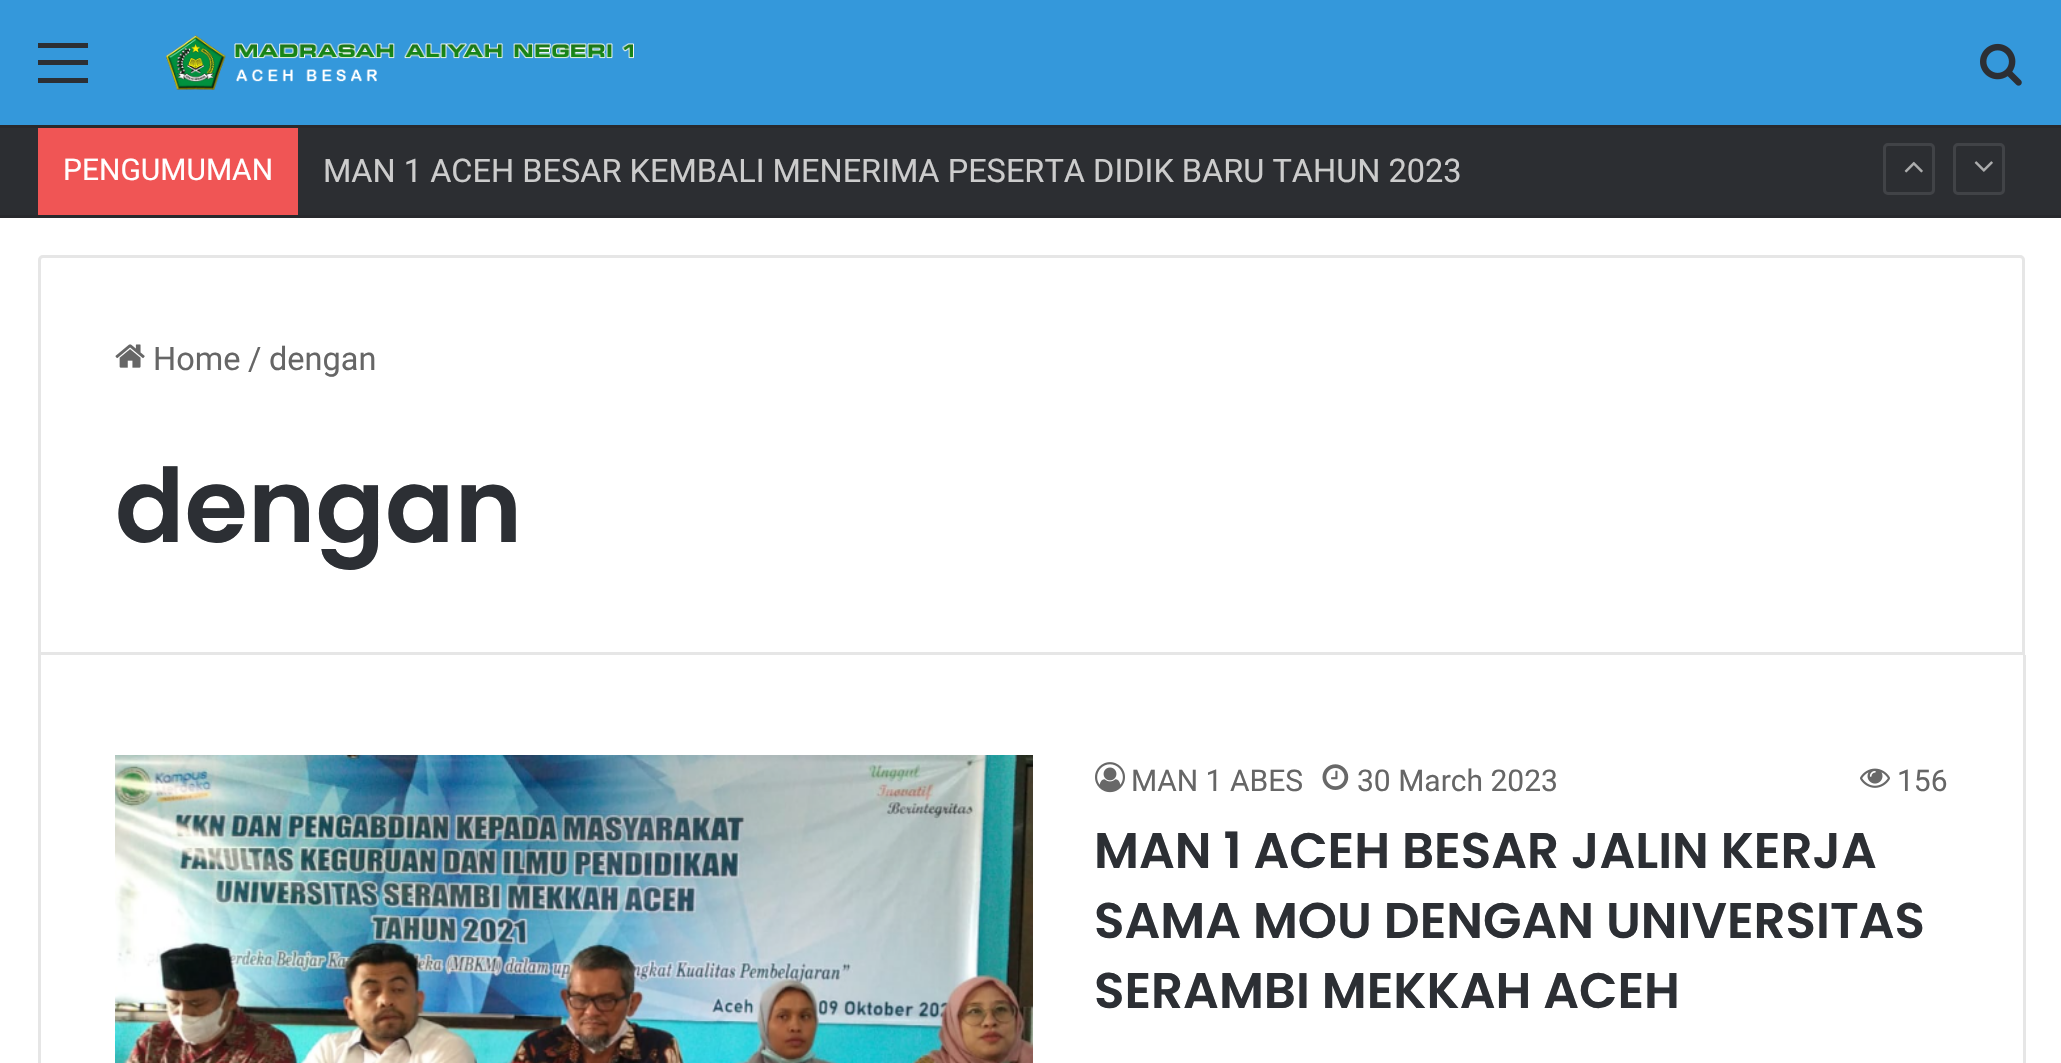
#include "include/core/SkBlurTypes.h"
#include "include/core/SkCanvas.h"
#include "include/core/SkData.h"
#include "include/core/SkFont.h"
#include "include/core/SkFontMgr.h"
#include "include/core/SkImage.h"
#include "include/core/SkMaskFilter.h"
#include "include/core/SkPaint.h"
#include "include/core/SkPathBuilder.h"
#include "include/core/SkTextBlob.h"
#include "include/effects/SkDashPathEffect.h"
#include "include/effects/SkGradientShader.h"
#include "include/utils/SkParsePath.h"

extern sk_sp<SkFontMgr> fontMgr;

static SkFont font(const char* family, int weight, float size, bool italic = false) {
    SkFontStyle style(weight, SkFontStyle::kNormal_Width,
        italic ? SkFontStyle::kItalic_Slant : SkFontStyle::kUpright_Slant);
    SkFont result(fontMgr->matchFamilyStyle(family, style), size);
    result.setSubpixel(true);
    return result;
}

static void drawLabel(SkCanvas* canvas, const char* s, float x, float y, const SkFont& font, SkColor color) {
    SkPaint ink(SkColor4f::FromColor(color));
    ink.setAntiAlias(true);
    canvas->drawString(s, x, y, font, ink);
}

static void fillRect(SkCanvas* canvas, float x, float y, float w, float h, SkColor color) {
    SkPaint ink(SkColor4f::FromColor(color));
    ink.setAntiAlias(true);
    canvas->drawRect(SkRect::MakeXYWH(x, y, w, h), ink);
}

static void drawPhoto(SkCanvas* canvas, const char* path, float x, float y, float w, float h) {
    auto image = SkImages::DeferredFromEncodedData(SkData::MakeFromFileName(path));
    canvas->drawImageRect(image, SkRect::MakeXYWH(x, y, w, h), SkSamplingOptions());
}

static SkPath parsePath(const char* data, bool evenOdd = false) {
    SkPath result = *SkParsePath::FromSVGString(data);
    if (evenOdd) result.setFillType(SkPathFillType::kEvenOdd);
    return result;
}

void draw(SkCanvas* canvas) {
    SkPaint paint;
    paint.setAntiAlias(true);
    canvas->clear(0xFFFFFFFF);
    fillRect(canvas, 0, 0, 2061, 125, 0xFF3498DB);
    fillRect(canvas, 38, 60, 50, 5, 0xFF2C2F34);
    fillRect(canvas, 38, 43, 50, 5, 0xFF2C2F34);
    fillRect(canvas, 38, 78, 50, 5, 0xFF2C2F34);
    drawPhoto(canvas, "assets/img1.png", 166, 35, 468, 55);
    drawPhoto(canvas, "assets/img2.png", 1980, 43, 42, 43);
    fillRect(canvas, 0, 128, 2061, 87, 0xFF2C2E32);
    fillRect(canvas, 0, 125, 2061, 3, 0xFF28292D);
    fillRect(canvas, 0, 215, 2061, 3, 0xFF28292D);
    fillRect(canvas, 38, 128, 260, 87, 0xFFF05555);
    SkFont font1 = font("Roboto", 400, 30);
    drawLabel(canvas, "PENGUMUMAN", 63, 180, font1, 0xFFFFFFFF);
    SkFont font2 = font("Roboto", 400, 32.5f);
    drawLabel(canvas, "MAN 1 ACEH BESAR KEMBALI MENERIMA PESERTA DIDIK BARU TAHUN 2023", 323, 182, font2, 0xFFCCCCCC);
    paint.setStroke(true);
    paint.setStrokeWidth(3);
    paint.setColor(0xFF414347);
    canvas->drawRoundRect(SkRect::MakeXYWH(1884.5f, 144.5f, 49, 49), 3.5f, 3.5f, paint);
    drawPhoto(canvas, "assets/img3.png", 1904, 161, 19, 12);
    canvas->drawRoundRect(SkRect::MakeXYWH(1954.5f, 144.5f, 49, 49), 3.5f, 3.5f, paint);
    drawPhoto(canvas, "assets/img4.png", 1974, 161, 19, 11);
    paint.setColor(0xFFE6E6E6);
    canvas->drawPath(parsePath("M43 256.5H2020C2022 256.5 2023.5 258 2023.5 260V653.5H39.5V260C39.5 258 41 256.5 43 256.5Z"), paint);
    drawPhoto(canvas, "assets/img5.png", 115, 344, 30, 24);
    drawLabel(canvas, "Home", 153, 370, font2, 0xFF666666);
    drawLabel(canvas, "/", 248, 370, font2, 0xFF666666);
    drawLabel(canvas, "dengan", 269, 370, font2, 0xFF666666);
    SkFont font3 = font("Poppins", 600, 102.5f);
    drawLabel(canvas, "dengan", 115, 542, font3, 0xFF2C2F34);
    fillRect(canvas, 2023, 655, 3, 408, 0xFFE6E6E6);
    fillRect(canvas, 38, 655, 3, 408, 0xFFE6E6E6);
    drawPhoto(canvas, "assets/img6.png", 115, 755, 918, 308);
    drawPhoto(canvas, "assets/img7.png", 1095, 762, 30, 31);
    drawLabel(canvas, "MAN 1 ABES", 1131, 791, font1, 0xFF666666);
    drawPhoto(canvas, "assets/img8.png", 1322, 764, 27, 26);
    drawLabel(canvas, "30 March 2023", 1357, 791, font1, 0xFF666666);
    drawPhoto(canvas, "assets/img9.png", 1860, 768, 30, 20);
    drawLabel(canvas, "156", 1897, 791, font1, 0xFF666666);
    SkFont font4 = font("Poppins", 600, 50);
    drawLabel(canvas, "MAN 1 ACEH BESAR JALIN KERJA", 1094, 868, font4, 0xFF2C2F34);
    drawLabel(canvas, "SAMA MOU DENGAN UNIVERSITAS", 1094, 938, font4, 0xFF2C2F34);
    drawLabel(canvas, "SERAMBI MEKKAH ACEH", 1094, 1008, font4, 0xFF2C2F34);
}
